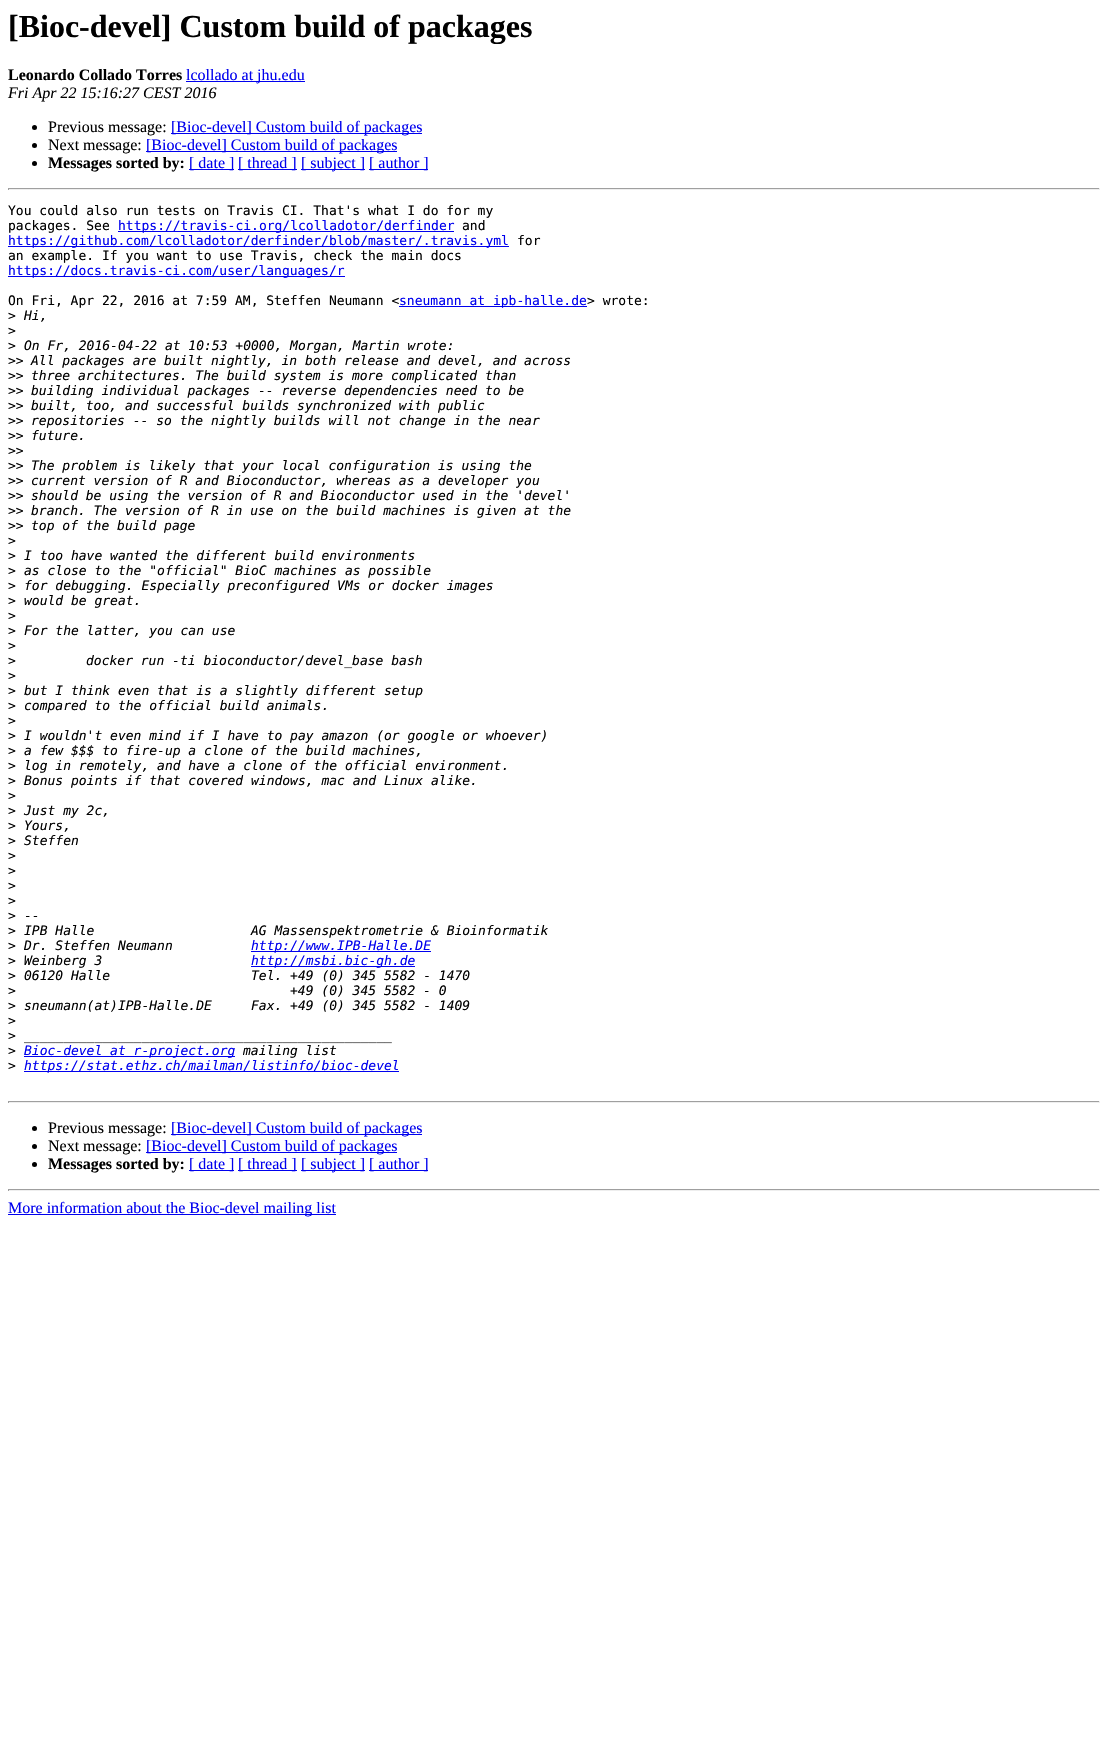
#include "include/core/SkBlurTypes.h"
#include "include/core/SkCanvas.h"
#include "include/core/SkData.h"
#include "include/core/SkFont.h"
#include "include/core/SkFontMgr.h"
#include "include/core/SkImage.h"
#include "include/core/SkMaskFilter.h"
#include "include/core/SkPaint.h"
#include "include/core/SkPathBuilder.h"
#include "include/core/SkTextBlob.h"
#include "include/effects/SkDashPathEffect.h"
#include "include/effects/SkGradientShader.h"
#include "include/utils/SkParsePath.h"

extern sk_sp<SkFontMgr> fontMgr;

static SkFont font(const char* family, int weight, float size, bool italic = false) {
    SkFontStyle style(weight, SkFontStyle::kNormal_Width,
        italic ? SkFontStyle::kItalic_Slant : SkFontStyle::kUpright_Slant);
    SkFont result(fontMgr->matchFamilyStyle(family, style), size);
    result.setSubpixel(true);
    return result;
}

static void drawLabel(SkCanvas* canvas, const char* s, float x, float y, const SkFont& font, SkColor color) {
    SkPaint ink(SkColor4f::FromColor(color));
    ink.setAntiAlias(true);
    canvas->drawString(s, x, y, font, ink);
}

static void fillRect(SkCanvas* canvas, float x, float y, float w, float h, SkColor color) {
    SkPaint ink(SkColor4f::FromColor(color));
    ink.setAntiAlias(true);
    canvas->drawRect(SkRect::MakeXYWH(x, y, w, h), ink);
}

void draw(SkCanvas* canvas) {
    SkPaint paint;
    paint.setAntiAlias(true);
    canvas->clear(0xFFFFFFFF);
    SkFont font1 = font("Liberation Serif", 700, 32);
    drawLabel(canvas, "[Bioc-devel] Custom build of packages", 8, 37, font1, 0xFF000000);
    SkFont font2 = font("Liberation Serif", 700, 16);
    drawLabel(canvas, "Leonardo Collado Torres", 8, 80, font2, 0xFF000000);
    fillRect(canvas, 186, 81, 119, 1, 0xFF0000EE);
    SkFont font3 = font("Liberation Serif", 400, 16);
    drawLabel(canvas, "lcollado at jhu.edu", 186, 80, font3, 0xFF0000EE);
    SkFont font4 = font("Liberation Serif", 400, 16, true);
    drawLabel(canvas, "Fri Apr 22 15:16:27 CEST 2016", 8, 98, font4, 0xFF000000);
    paint.setColor(0xFF000000);
    canvas->drawCircle(34.5f, 127.5f, 2.5f, paint);
    drawLabel(canvas, "Previous message:", 48, 132, font3, 0xFF000000);
    fillRect(canvas, 171, 133, 251, 1, 0xFF0000EE);
    drawLabel(canvas, "[Bioc-devel] Custom build of packages", 171, 132, font3, 0xFF0000EE);
    canvas->drawCircle(34.5f, 145.5f, 2.5f, paint);
    drawLabel(canvas, "Next message:", 48, 150, font3, 0xFF000000);
    fillRect(canvas, 146, 151, 251, 1, 0xFF0000EE);
    drawLabel(canvas, "[Bioc-devel] Custom build of packages", 146, 150, font3, 0xFF0000EE);
    canvas->drawCircle(34.5f, 163.5f, 2.5f, paint);
    drawLabel(canvas, "Messages sorted by:", 48, 168, font2, 0xFF000000);
    fillRect(canvas, 189, 169, 45, 1, 0xFF0000EE);
    drawLabel(canvas, "[ date ]", 189, 168, font3, 0xFF0000EE);
    fillRect(canvas, 238, 169, 59, 1, 0xFF0000EE);
    drawLabel(canvas, "[ thread ]", 238, 168, font3, 0xFF0000EE);
    fillRect(canvas, 301, 169, 64, 1, 0xFF0000EE);
    drawLabel(canvas, "[ subject ]", 301, 168, font3, 0xFF0000EE);
    fillRect(canvas, 369, 169, 59, 1, 0xFF0000EE);
    drawLabel(canvas, "[ author ]", 369, 168, font3, 0xFF0000EE);
    fillRect(canvas, 8, 188, 1092, 1, 0xFF9F9F9F);
    fillRect(canvas, 1099, 188, 1, 2, 0xFFEEEEEE);
    fillRect(canvas, 8, 189, 1092, 1, 0xFFEEEEEE);
    fillRect(canvas, 8, 188, 1, 2, 0xFF9F9F9F);
    SkFont font5 = font("DejaVu Sans Mono", 400, 13);
    drawLabel(canvas, "You could also run tests on Travis CI. That's what I do for my", 8, 215, font5, 0xFF000000);
    drawLabel(canvas, "packages. See", 8, 230, font5, 0xFF000000);
    fillRect(canvas, 118, 231, 336, 1, 0xFF0000EE);
    drawLabel(canvas, "https://travis-ci.org/lcolladotor/derfinder", 118, 230, font5, 0xFF0000EE);
    drawLabel(canvas, "and", 462, 230, font5, 0xFF000000);
    fillRect(canvas, 8, 246, 501, 1, 0xFF0000EE);
    drawLabel(canvas, "https://github.com/lcolladotor/derfinder/blob/master/.travis.yml", 8, 245, font5, 0xFF0000EE);
    drawLabel(canvas, "for", 517, 245, font5, 0xFF000000);
    drawLabel(canvas, "an example. If you want to use Travis, check the main docs", 8, 260, font5, 0xFF000000);
    fillRect(canvas, 8, 276, 337, 1, 0xFF0000EE);
    drawLabel(canvas, "https://docs.travis-ci.com/user/languages/r", 8, 275, font5, 0xFF0000EE);
    drawLabel(canvas, "On Fri, Apr 22, 2016 at 7:59 AM, Steffen Neumann <", 8, 305, font5, 0xFF000000);
    fillRect(canvas, 399, 306, 188, 1, 0xFF0000EE);
    drawLabel(canvas, "sneumann at ipb-halle.de", 399, 305, font5, 0xFF0000EE);
    drawLabel(canvas, "> wrote:", 587, 305, font5, 0xFF000000);
    drawLabel(canvas, ">", 8, 320, font5, 0xFF000000);
    SkFont font6 = font("DejaVu Sans Mono", 400, 13, true);
    drawLabel(canvas, "Hi,", 24, 320, font6, 0xFF000000);
    drawLabel(canvas, ">", 8, 335, font5, 0xFF000000);
    drawLabel(canvas, ">", 8, 350, font5, 0xFF000000);
    drawLabel(canvas, "On Fr, 2016-04-22 at 10:53 +0000, Morgan, Martin wrote:", 24, 350, font6, 0xFF000000);
    drawLabel(canvas, ">>", 8, 365, font5, 0xFF000000);
    drawLabel(canvas, "All packages are built nightly, in both release and devel, and across", 31, 365, font6, 0xFF000000);
    drawLabel(canvas, ">>", 8, 380, font5, 0xFF000000);
    drawLabel(canvas, "three architectures. The build system is more complicated than", 31, 380, font6, 0xFF000000);
    drawLabel(canvas, ">>", 8, 395, font5, 0xFF000000);
    drawLabel(canvas, "building individual packages -- reverse dependencies need to be", 31, 395, font6, 0xFF000000);
    drawLabel(canvas, ">>", 8, 410, font5, 0xFF000000);
    drawLabel(canvas, "built, too, and successful builds synchronized with public", 31, 410, font6, 0xFF000000);
    drawLabel(canvas, ">>", 8, 425, font5, 0xFF000000);
    drawLabel(canvas, "repositories -- so the nightly builds will not change in the near", 31, 425, font6, 0xFF000000);
    drawLabel(canvas, ">>", 8, 440, font5, 0xFF000000);
    drawLabel(canvas, "future.", 31, 440, font6, 0xFF000000);
    drawLabel(canvas, ">>", 8, 455, font5, 0xFF000000);
    drawLabel(canvas, ">>", 8, 470, font5, 0xFF000000);
    drawLabel(canvas, "The problem is likely that your local configuration is using the", 31, 470, font6, 0xFF000000);
    drawLabel(canvas, ">>", 8, 485, font5, 0xFF000000);
    drawLabel(canvas, "current version of R and Bioconductor, whereas as a developer you", 31, 485, font6, 0xFF000000);
    drawLabel(canvas, ">>", 8, 500, font5, 0xFF000000);
    drawLabel(canvas, "should be using the version of R and Bioconductor used in the 'devel'", 31, 500, font6, 0xFF000000);
    drawLabel(canvas, ">>", 8, 515, font5, 0xFF000000);
    drawLabel(canvas, "branch. The version of R in use on the build machines is given at the", 31, 515, font6, 0xFF000000);
    drawLabel(canvas, ">>", 8, 530, font5, 0xFF000000);
    drawLabel(canvas, "top of the build page", 31, 530, font6, 0xFF000000);
    drawLabel(canvas, ">", 8, 545, font5, 0xFF000000);
    drawLabel(canvas, ">", 8, 560, font5, 0xFF000000);
    drawLabel(canvas, "I too have wanted the different build environments", 24, 560, font6, 0xFF000000);
    drawLabel(canvas, ">", 8, 575, font5, 0xFF000000);
    drawLabel(canvas, "as close to the \"official\" BioC machines as possible", 24, 575, font6, 0xFF000000);
    drawLabel(canvas, ">", 8, 590, font5, 0xFF000000);
    drawLabel(canvas, "for debugging. Especially preconfigured VMs or docker images", 24, 590, font6, 0xFF000000);
    drawLabel(canvas, ">", 8, 605, font5, 0xFF000000);
    drawLabel(canvas, "would be great.", 24, 605, font6, 0xFF000000);
    drawLabel(canvas, ">", 8, 620, font5, 0xFF000000);
    drawLabel(canvas, ">", 8, 635, font5, 0xFF000000);
    drawLabel(canvas, "For the latter, you can use", 24, 635, font6, 0xFF000000);
    drawLabel(canvas, ">", 8, 650, font5, 0xFF000000);
    drawLabel(canvas, ">", 8, 665, font5, 0xFF000000);
    drawLabel(canvas, "docker run -ti bioconductor/devel_base bash", 86, 665, font6, 0xFF000000);
    drawLabel(canvas, ">", 8, 680, font5, 0xFF000000);
    drawLabel(canvas, ">", 8, 695, font5, 0xFF000000);
    drawLabel(canvas, "but I think even that is a slightly different setup", 24, 695, font6, 0xFF000000);
    drawLabel(canvas, ">", 8, 710, font5, 0xFF000000);
    drawLabel(canvas, "compared to the official build animals.", 24, 710, font6, 0xFF000000);
    drawLabel(canvas, ">", 8, 725, font5, 0xFF000000);
    drawLabel(canvas, ">", 8, 740, font5, 0xFF000000);
    drawLabel(canvas, "I wouldn't even mind if I have to pay amazon (or google or whoever)", 24, 740, font6, 0xFF000000);
    drawLabel(canvas, ">", 8, 755, font5, 0xFF000000);
    drawLabel(canvas, "a few $$$ to fire-up a clone of the build machines,", 24, 755, font6, 0xFF000000);
    drawLabel(canvas, ">", 8, 770, font5, 0xFF000000);
    drawLabel(canvas, "log in remotely, and have a clone of the official environment.", 24, 770, font6, 0xFF000000);
    drawLabel(canvas, ">", 8, 785, font5, 0xFF000000);
    drawLabel(canvas, "Bonus points if that covered windows, mac and Linux alike.", 24, 785, font6, 0xFF000000);
    drawLabel(canvas, ">", 8, 800, font5, 0xFF000000);
    drawLabel(canvas, ">", 8, 815, font5, 0xFF000000);
    drawLabel(canvas, "Just my 2c,", 24, 815, font6, 0xFF000000);
    drawLabel(canvas, ">", 8, 830, font5, 0xFF000000);
    drawLabel(canvas, "Yours,", 24, 830, font6, 0xFF000000);
    drawLabel(canvas, ">", 8, 845, font5, 0xFF000000);
    drawLabel(canvas, "Steffen", 24, 845, font6, 0xFF000000);
    drawLabel(canvas, ">", 8, 860, font5, 0xFF000000);
    drawLabel(canvas, ">", 8, 875, font5, 0xFF000000);
    drawLabel(canvas, ">", 8, 890, font5, 0xFF000000);
    drawLabel(canvas, ">", 8, 905, font5, 0xFF000000);
    drawLabel(canvas, ">", 8, 920, font5, 0xFF000000);
    drawLabel(canvas, "--", 24, 920, font6, 0xFF000000);
    drawLabel(canvas, ">", 8, 935, font5, 0xFF000000);
    drawLabel(canvas, "IPB Halle                    AG Massenspektrometrie & Bioinformatik", 24, 935, font6, 0xFF000000);
    drawLabel(canvas, ">", 8, 950, font5, 0xFF000000);
    drawLabel(canvas, "Dr. Steffen Neumann", 24, 950, font6, 0xFF000000);
    fillRect(canvas, 251, 951, 180, 1, 0xFF0000EE);
    drawLabel(canvas, "http://www.IPB-Halle.DE", 251, 950, font6, 0xFF0000EE);
    drawLabel(canvas, ">", 8, 965, font5, 0xFF000000);
    drawLabel(canvas, "Weinberg 3", 24, 965, font6, 0xFF000000);
    fillRect(canvas, 251, 966, 164, 1, 0xFF0000EE);
    drawLabel(canvas, "http://msbi.bic-gh.de", 251, 965, font6, 0xFF0000EE);
    drawLabel(canvas, ">", 8, 980, font5, 0xFF000000);
    drawLabel(canvas, "06120 Halle                  Tel. +49 (0) 345 5582 - 1470", 24, 980, font6, 0xFF000000);
    drawLabel(canvas, ">", 8, 995, font5, 0xFF000000);
    drawLabel(canvas, "+49 (0) 345 5582 - 0", 290, 995, font6, 0xFF000000);
    drawLabel(canvas, ">", 8, 1010, font5, 0xFF000000);
    drawLabel(canvas, "sneumann(at)IPB-Halle.DE     Fax. +49 (0) 345 5582 - 1409", 24, 1010, font6, 0xFF000000);
    drawLabel(canvas, ">", 8, 1025, font5, 0xFF000000);
    drawLabel(canvas, ">", 8, 1040, font5, 0xFF000000);
    drawLabel(canvas, "_______________________________________________", 24, 1040, font6, 0xFF000000);
    drawLabel(canvas, ">", 8, 1055, font5, 0xFF000000);
    fillRect(canvas, 24, 1056, 211, 1, 0xFF0000EE);
    drawLabel(canvas, "Bioc-devel at r-project.org", 24, 1055, font6, 0xFF0000EE);
    drawLabel(canvas, "mailing list", 243, 1055, font6, 0xFF000000);
    drawLabel(canvas, ">", 8, 1070, font5, 0xFF000000);
    fillRect(canvas, 24, 1071, 375, 1, 0xFF0000EE);
    drawLabel(canvas, "https://stat.ethz.ch/mailman/listinfo/bioc-devel", 24, 1070, font6, 0xFF0000EE);
    fillRect(canvas, 8, 1101, 1092, 1, 0xFF9F9F9F);
    fillRect(canvas, 1099, 1101, 1, 2, 0xFFEEEEEE);
    fillRect(canvas, 8, 1102, 1092, 1, 0xFFEEEEEE);
    fillRect(canvas, 8, 1101, 1, 2, 0xFF9F9F9F);
    canvas->drawCircle(34.5f, 1128.5f, 2.5f, paint);
    drawLabel(canvas, "Previous message:", 48, 1133, font3, 0xFF000000);
    fillRect(canvas, 171, 1134, 251, 1, 0xFF0000EE);
    drawLabel(canvas, "[Bioc-devel] Custom build of packages", 171, 1133, font3, 0xFF0000EE);
    canvas->drawCircle(34.5f, 1146.5f, 2.5f, paint);
    drawLabel(canvas, "Next message:", 48, 1151, font3, 0xFF000000);
    fillRect(canvas, 146, 1152, 251, 1, 0xFF0000EE);
    drawLabel(canvas, "[Bioc-devel] Custom build of packages", 146, 1151, font3, 0xFF0000EE);
    canvas->drawCircle(34.5f, 1164.5f, 2.5f, paint);
    drawLabel(canvas, "Messages sorted by:", 48, 1169, font2, 0xFF000000);
    fillRect(canvas, 189, 1170, 45, 1, 0xFF0000EE);
    drawLabel(canvas, "[ date ]", 189, 1169, font3, 0xFF0000EE);
    fillRect(canvas, 238, 1170, 59, 1, 0xFF0000EE);
    drawLabel(canvas, "[ thread ]", 238, 1169, font3, 0xFF0000EE);
    fillRect(canvas, 301, 1170, 64, 1, 0xFF0000EE);
    drawLabel(canvas, "[ subject ]", 301, 1169, font3, 0xFF0000EE);
    fillRect(canvas, 369, 1170, 59, 1, 0xFF0000EE);
    drawLabel(canvas, "[ author ]", 369, 1169, font3, 0xFF0000EE);
    fillRect(canvas, 8, 1189, 1092, 1, 0xFF9F9F9F);
    fillRect(canvas, 1099, 1189, 1, 2, 0xFFEEEEEE);
    fillRect(canvas, 8, 1190, 1092, 1, 0xFFEEEEEE);
    fillRect(canvas, 8, 1189, 1, 2, 0xFF9F9F9F);
    fillRect(canvas, 8, 1214, 328, 1, 0xFF0000EE);
    drawLabel(canvas, "More information about the Bioc-devel mailing list", 8, 1213, font3, 0xFF0000EE);
}
